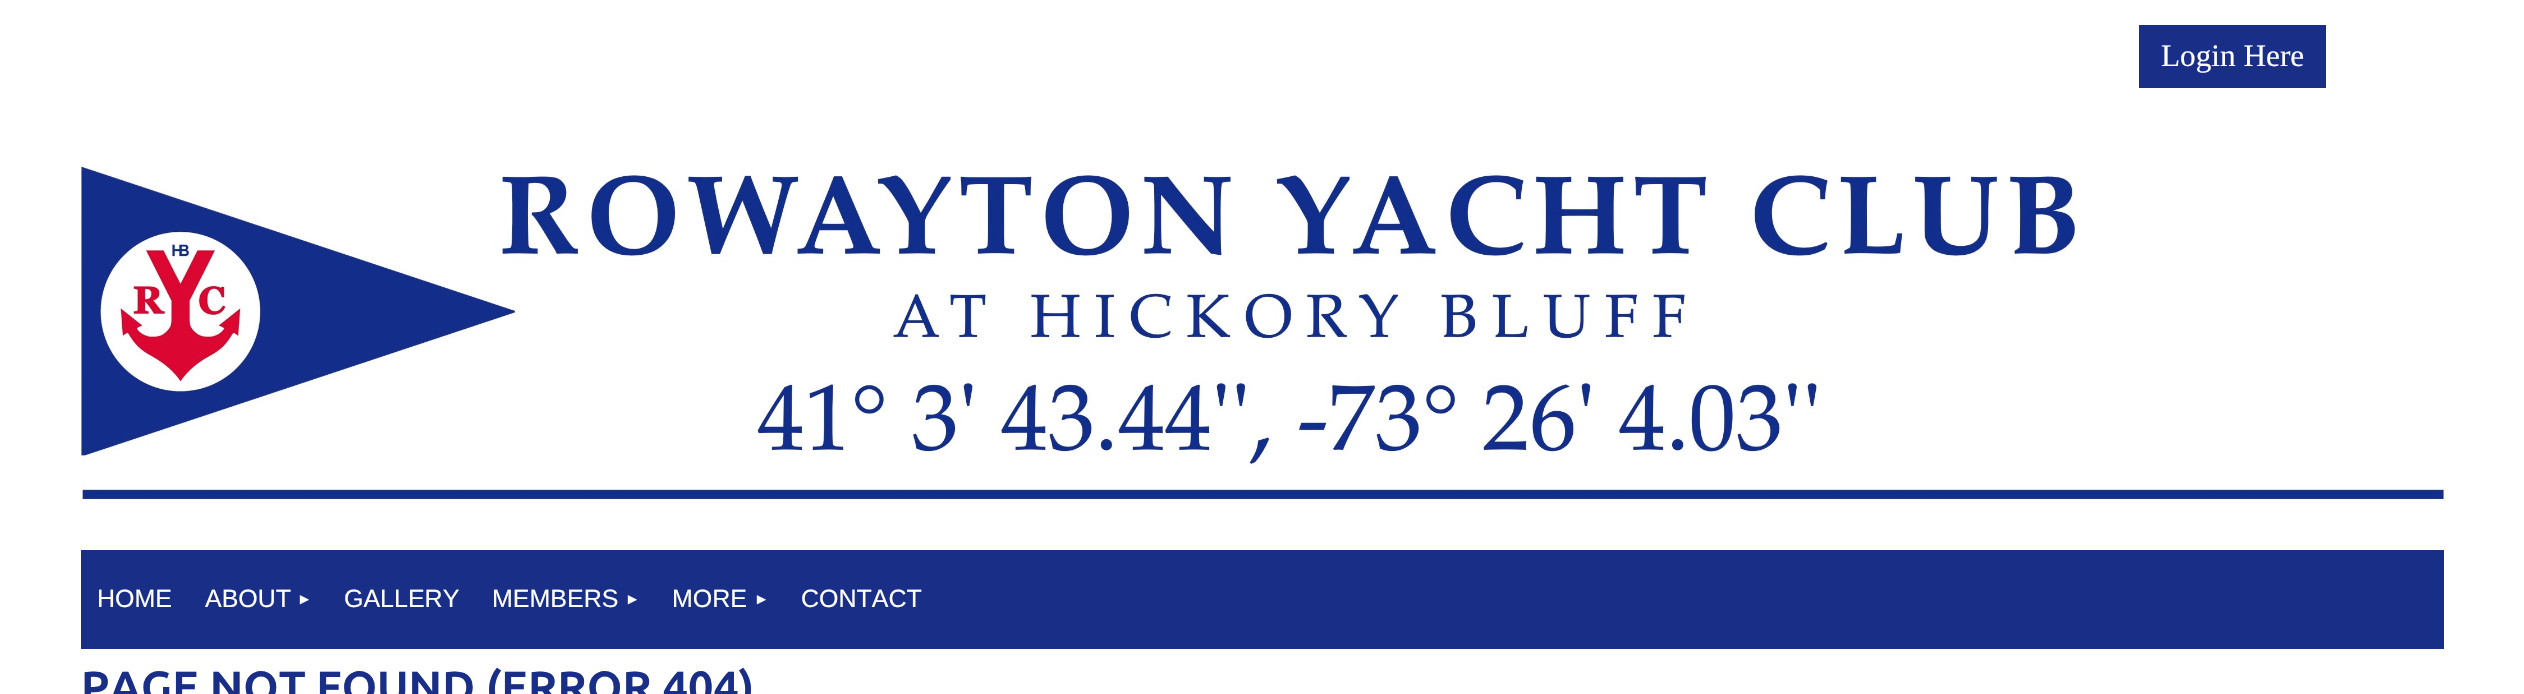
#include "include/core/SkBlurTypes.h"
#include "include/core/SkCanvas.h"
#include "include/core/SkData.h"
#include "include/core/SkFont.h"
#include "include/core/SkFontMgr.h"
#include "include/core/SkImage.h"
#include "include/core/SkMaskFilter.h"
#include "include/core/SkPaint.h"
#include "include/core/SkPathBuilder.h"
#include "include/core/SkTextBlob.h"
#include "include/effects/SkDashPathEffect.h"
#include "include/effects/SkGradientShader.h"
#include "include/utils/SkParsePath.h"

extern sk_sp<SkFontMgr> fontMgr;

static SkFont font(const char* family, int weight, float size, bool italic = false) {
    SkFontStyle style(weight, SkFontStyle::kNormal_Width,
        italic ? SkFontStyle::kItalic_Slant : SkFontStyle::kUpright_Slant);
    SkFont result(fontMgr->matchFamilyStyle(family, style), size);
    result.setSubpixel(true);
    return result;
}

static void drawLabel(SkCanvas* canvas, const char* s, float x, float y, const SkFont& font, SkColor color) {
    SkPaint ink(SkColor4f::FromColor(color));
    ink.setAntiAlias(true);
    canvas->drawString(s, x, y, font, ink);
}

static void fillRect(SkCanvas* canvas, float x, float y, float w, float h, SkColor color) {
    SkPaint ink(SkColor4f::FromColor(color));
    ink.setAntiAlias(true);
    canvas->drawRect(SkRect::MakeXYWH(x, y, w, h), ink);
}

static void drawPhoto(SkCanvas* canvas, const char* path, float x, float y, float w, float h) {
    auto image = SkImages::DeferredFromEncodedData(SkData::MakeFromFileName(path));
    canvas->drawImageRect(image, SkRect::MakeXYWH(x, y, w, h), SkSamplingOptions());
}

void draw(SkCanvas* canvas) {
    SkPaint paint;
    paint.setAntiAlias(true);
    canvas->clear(0xFFFFFFFF);
    fillRect(canvas, 2139, 25, 187, 63, 0xFF192E86);
    SkFont font1 = font("Liberation Serif", 400, 31.25f);
    drawLabel(canvas, "Login Here", 2161, 66, font1, 0xFFFFFFFF);
    drawPhoto(canvas, "assets/img1.png", 81, 163, 2363, 338);
    fillRect(canvas, 81, 550, 2363, 99, 0xFF192E86);
    SkFont font2 = font("Liberation Sans", 400, 25);
    drawLabel(canvas, "HOME", 97, 607, font2, 0xFFFFFFFF);
    drawLabel(canvas, "ABOUT", 205, 607, font2, 0xFFFFFFFF);
    SkFont font3 = font("Liberation Sans", 400, 15);
    drawLabel(canvas, "►", 297, 604, font3, 0xFFFFFFFF);
    drawLabel(canvas, "GALLERY", 344, 607, font2, 0xFFFFFFFF);
    drawLabel(canvas, "MEMBERS", 492, 607, font2, 0xFFFFFFFF);
    drawLabel(canvas, "►", 625, 604, font3, 0xFFFFFFFF);
    drawLabel(canvas, "MORE", 672, 607, font2, 0xFFFFFFFF);
    drawLabel(canvas, "►", 754, 604, font3, 0xFFFFFFFF);
    drawLabel(canvas, "CONTACT", 801, 607, font2, 0xFFFFFFFF);
    SkFont font4 = font("Ubuntu", 700, 45);
    drawLabel(canvas, "PAGE NOT FOUND (ERROR 404)", 81, 703, font4, 0xFF192E86);
}
